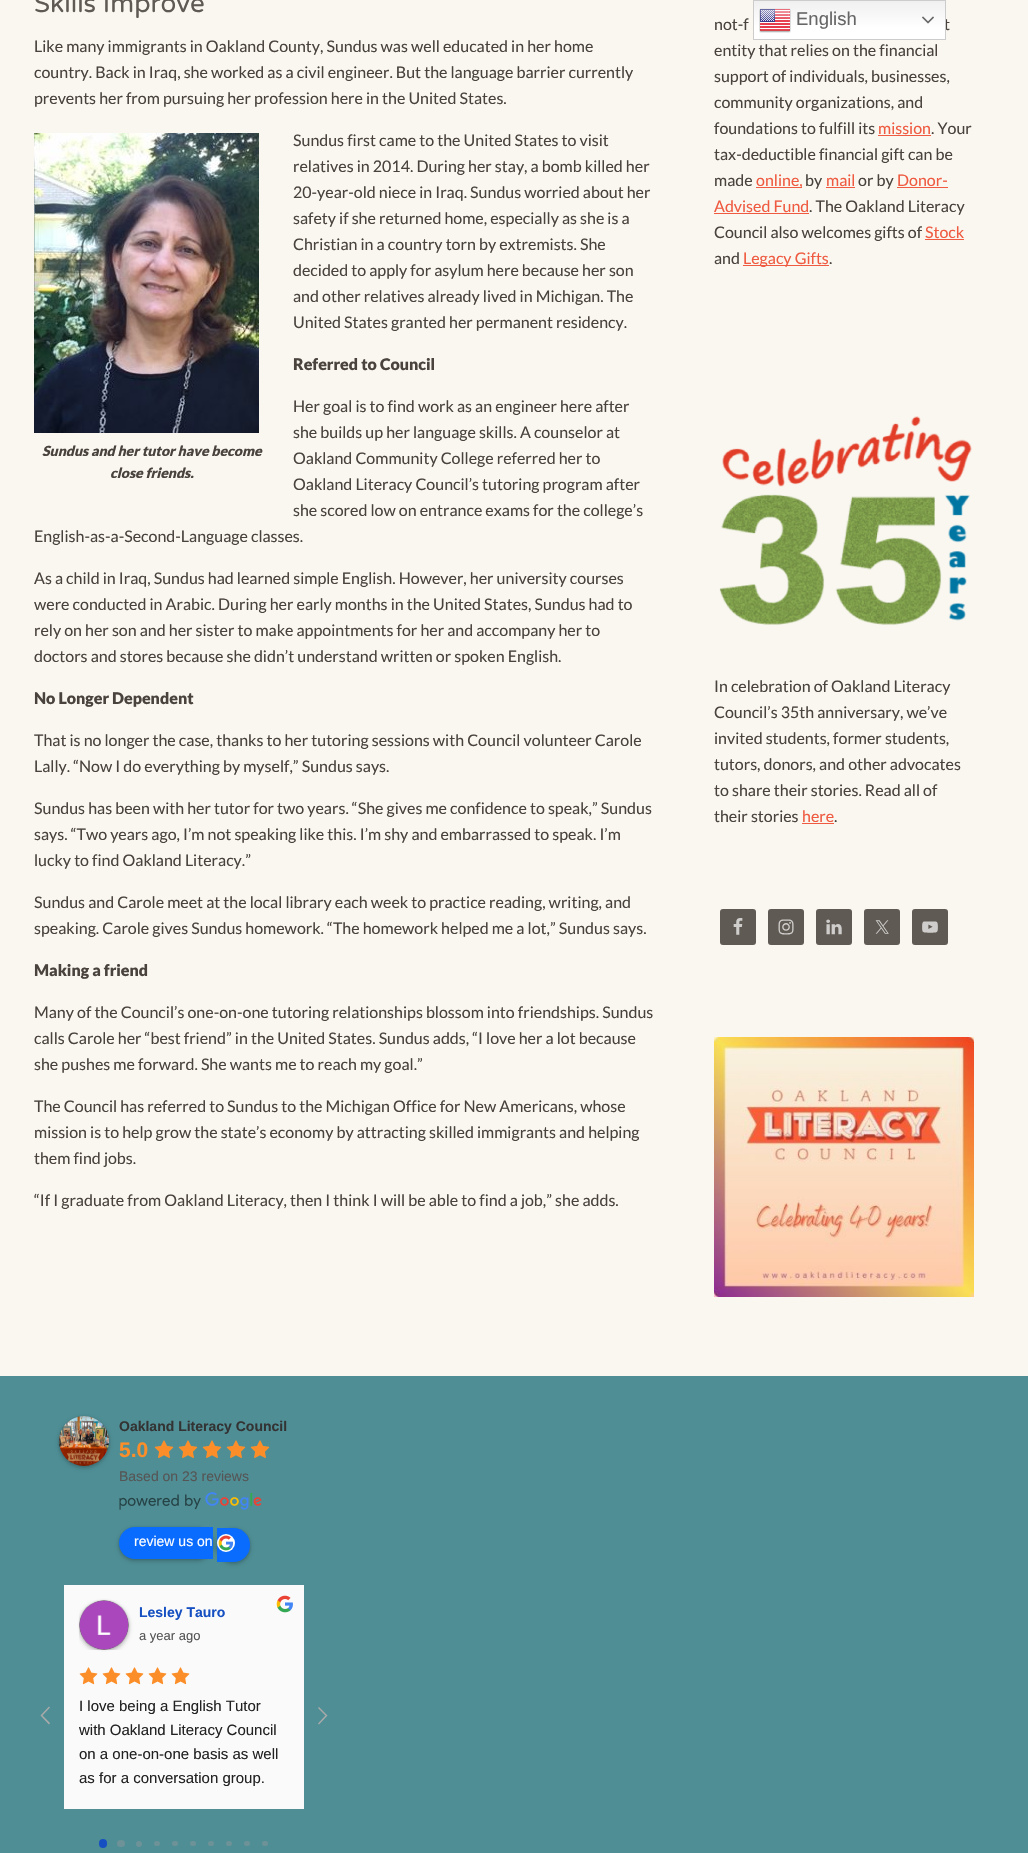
#include "include/core/SkBlurTypes.h"
#include "include/core/SkCanvas.h"
#include "include/core/SkData.h"
#include "include/core/SkFont.h"
#include "include/core/SkFontMgr.h"
#include "include/core/SkImage.h"
#include "include/core/SkMaskFilter.h"
#include "include/core/SkPaint.h"
#include "include/core/SkPathBuilder.h"
#include "include/core/SkTextBlob.h"
#include "include/effects/SkDashPathEffect.h"
#include "include/effects/SkGradientShader.h"
#include "include/utils/SkParsePath.h"

extern sk_sp<SkFontMgr> fontMgr;

static SkFont font(const char* family, int weight, float size, bool italic = false) {
    SkFontStyle style(weight, SkFontStyle::kNormal_Width,
        italic ? SkFontStyle::kItalic_Slant : SkFontStyle::kUpright_Slant);
    SkFont result(fontMgr->matchFamilyStyle(family, style), size);
    result.setSubpixel(true);
    return result;
}

static void drawLabel(SkCanvas* canvas, const char* s, float x, float y, const SkFont& font, SkColor color) {
    SkPaint ink(SkColor4f::FromColor(color));
    ink.setAntiAlias(true);
    canvas->drawString(s, x, y, font, ink);
}

static void fillRect(SkCanvas* canvas, float x, float y, float w, float h, SkColor color) {
    SkPaint ink(SkColor4f::FromColor(color));
    ink.setAntiAlias(true);
    canvas->drawRect(SkRect::MakeXYWH(x, y, w, h), ink);
}

static void fillRRect(SkCanvas* canvas, float x, float y, float w, float h, float radius, SkColor color) {
    SkPaint ink(SkColor4f::FromColor(color));
    ink.setAntiAlias(true);
    canvas->drawRoundRect(SkRect::MakeXYWH(x, y, w, h), radius, radius, ink);
}

static void drawPhoto(SkCanvas* canvas, const char* path, float x, float y, float w, float h) {
    auto image = SkImages::DeferredFromEncodedData(SkData::MakeFromFileName(path));
    canvas->drawImageRect(image, SkRect::MakeXYWH(x, y, w, h), SkSamplingOptions());
}

static SkPath parsePath(const char* data, bool evenOdd = false) {
    SkPath result = *SkParsePath::FromSVGString(data);
    if (evenOdd) result.setFillType(SkPathFillType::kEvenOdd);
    return result;
}

void draw(SkCanvas* canvas) {
    SkPaint paint;
    paint.setAntiAlias(true);
    canvas->clear(0xFFF9F7F0);
    SkFont font1 = font("Varela Round", 400, 26);
    drawLabel(canvas, "Skills Improve", 34, 12, font1, 0xFF5F5A53);
    SkFont font2 = font("Lato", 400, 16);
    drawLabel(canvas, "Like many immigrants in Oakland County, Sundus was well educated in her home", 34, 52, font2, 0xFF49423D);
    drawLabel(canvas, "country. Back in Iraq, she worked as a civil engineer. But the language barrier currently", 34, 78, font2, 0xFF49423D);
    drawLabel(canvas, "prevents her from pursuing her profession here in the United States.", 34, 104, font2, 0xFF49423D);
    drawLabel(canvas, "Sundus first came to the United States to visit", 293, 146, font2, 0xFF49423D);
    drawLabel(canvas, "relatives in 2014. During her stay, a bomb killed her", 293, 172, font2, 0xFF49423D);
    drawLabel(canvas, "20-year-old niece in Iraq. Sundus worried about her", 293, 198, font2, 0xFF49423D);
    drawLabel(canvas, "safety if she returned home, especially as she is a", 293, 224, font2, 0xFF49423D);
    drawLabel(canvas, "Christian in a country torn by extremists. She", 293, 250, font2, 0xFF49423D);
    drawLabel(canvas, "decided to apply for asylum here because her son", 293, 276, font2, 0xFF49423D);
    drawLabel(canvas, "and other relatives already lived in Michigan. The", 293, 302, font2, 0xFF49423D);
    drawLabel(canvas, "United States granted her permanent residency.", 293, 328, font2, 0xFF49423D);
    SkFont font3 = font("Lato", 900, 16);
    drawLabel(canvas, "Referred to Council", 293, 370, font3, 0xFF49423D);
    drawLabel(canvas, "Her goal is to find work as an engineer here after", 293, 412, font2, 0xFF49423D);
    drawLabel(canvas, "she builds up her language skills. A counselor at", 293, 438, font2, 0xFF49423D);
    drawLabel(canvas, "Oakland Community College referred her to", 293, 464, font2, 0xFF49423D);
    drawLabel(canvas, "Oakland Literacy Council’s tutoring program after", 293, 490, font2, 0xFF49423D);
    drawLabel(canvas, "she scored low on entrance exams for the college’s", 293, 516, font2, 0xFF49423D);
    drawLabel(canvas, "English-as-a-Second-Language classes.", 34, 542, font2, 0xFF49423D);
    drawPhoto(canvas, "assets/img1.png", 34, 133, 225, 300);
    SkFont font4 = font("Lato", 900, 14, true);
    drawLabel(canvas, "Sundus and her tutor have become", 42, 456, font4, 0xFF49423D);
    drawLabel(canvas, "close friends.", 110, 478, font4, 0xFF49423D);
    drawLabel(canvas, "As a child in Iraq, Sundus had learned simple English. However, her university courses", 34, 584, font2, 0xFF49423D);
    drawLabel(canvas, "were conducted in Arabic. During her early months in the United States, Sundus had to", 34, 610, font2, 0xFF49423D);
    drawLabel(canvas, "rely on her son and her sister to make appointments for her and accompany her to", 34, 636, font2, 0xFF49423D);
    drawLabel(canvas, "doctors and stores because she didn’t understand written or spoken English.", 34, 662, font2, 0xFF49423D);
    drawLabel(canvas, "No Longer Dependent", 34, 704, font3, 0xFF49423D);
    drawLabel(canvas, "That is no longer the case, thanks to her tutoring sessions with Council volunteer Carole", 34, 746, font2, 0xFF49423D);
    drawLabel(canvas, "Lally. “Now I do everything by myself,” Sundus says.", 34, 772, font2, 0xFF49423D);
    drawLabel(canvas, "Sundus has been with her tutor for two years. “She gives me confidence to speak,” Sundus", 34, 814, font2, 0xFF49423D);
    drawLabel(canvas, "says. “Two years ago, I’m not speaking like this. I’m shy and embarrassed to speak. I’m", 34, 840, font2, 0xFF49423D);
    drawLabel(canvas, "lucky to find Oakland Literacy.”", 34, 866, font2, 0xFF49423D);
    drawLabel(canvas, "Sundus and Carole meet at the local library each week to practice reading, writing, and", 34, 908, font2, 0xFF49423D);
    drawLabel(canvas, "speaking. Carole gives Sundus homework. “The homework helped me a lot,” Sundus says.", 34, 934, font2, 0xFF49423D);
    drawLabel(canvas, "Making a friend", 34, 976, font3, 0xFF49423D);
    drawLabel(canvas, "Many of the Council’s one-on-one tutoring relationships blossom into friendships. Sundus", 34, 1018, font2, 0xFF49423D);
    drawLabel(canvas, "calls Carole her “best friend” in the United States. Sundus adds, “I love her a lot because", 34, 1044, font2, 0xFF49423D);
    drawLabel(canvas, "she pushes me forward. She wants me to reach my goal.”", 34, 1070, font2, 0xFF49423D);
    drawLabel(canvas, "The Council has referred to Sundus to the Michigan Office for New Americans, whose", 34, 1112, font2, 0xFF49423D);
    drawLabel(canvas, "mission is to help grow the state’s economy by attracting skilled immigrants and helping", 34, 1138, font2, 0xFF49423D);
    drawLabel(canvas, "them find jobs.", 34, 1164, font2, 0xFF49423D);
    drawLabel(canvas, "“If I graduate from Oakland Literacy, then I think I will be able to find a job,” she adds.", 34, 1206, font2, 0xFF49423D);
    drawLabel(canvas, "not-f", 714, 30, font2, 0xFF49423D);
    drawLabel(canvas, "t", 944, 30, font2, 0xFF49423D);
    drawLabel(canvas, "entity that relies on the financial", 714, 56, font2, 0xFF49423D);
    drawLabel(canvas, "support of individuals, businesses,", 714, 82, font2, 0xFF49423D);
    drawLabel(canvas, "community organizations, and", 714, 108, font2, 0xFF49423D);
    drawLabel(canvas, "foundations to fulfill its", 714, 134, font2, 0xFF49423D);
    drawLabel(canvas, "mission", 878, 134, font2, 0xFFEF5A40);
    fillRect(canvas, 878, 135, 53, 1, 0xFFEF5A40);
    drawLabel(canvas, ". Your", 931, 134, font2, 0xFF49423D);
    drawLabel(canvas, "tax-deductible financial gift can be", 714, 160, font2, 0xFF49423D);
    drawLabel(canvas, "made", 714, 186, font2, 0xFF49423D);
    fillRect(canvas, 756, 187, 46, 1, 0xFFEF5A40);
    drawLabel(canvas, "online,", 756, 186, font2, 0xFFEF5A40);
    drawLabel(canvas, "by", 805, 186, font2, 0xFF49423D);
    drawLabel(canvas, "mail", 826, 186, font2, 0xFFEF5A40);
    fillRect(canvas, 826, 187, 29, 1, 0xFFEF5A40);
    drawLabel(canvas, "or by", 858, 186, font2, 0xFF49423D);
    drawLabel(canvas, "Donor-", 897, 186, font2, 0xFFEF5A40);
    fillRect(canvas, 897, 187, 51, 1, 0xFFEF5A40);
    drawLabel(canvas, "Advised Fund", 714, 212, font2, 0xFFEF5A40);
    fillRect(canvas, 714, 213, 95, 1, 0xFFEF5A40);
    drawLabel(canvas, ". The Oakland Literacy", 809, 212, font2, 0xFF49423D);
    drawLabel(canvas, "Council also welcomes gifts of", 714, 238, font2, 0xFF49423D);
    drawLabel(canvas, "Stock", 925, 238, font2, 0xFFEF5A40);
    fillRect(canvas, 925, 239, 39, 1, 0xFFEF5A40);
    drawLabel(canvas, "and", 714, 264, font2, 0xFF49423D);
    fillRect(canvas, 743, 265, 86, 1, 0xFFEF5A40);
    drawLabel(canvas, "Legacy Gifts", 743, 264, font2, 0xFFEF5A40);
    drawLabel(canvas, ".", 829, 264, font2, 0xFF49423D);
    drawPhoto(canvas, "assets/img2.png", 719, 416, 253, 209);
    drawLabel(canvas, "In celebration of Oakland Literacy", 714, 692, font2, 0xFF49423D);
    drawLabel(canvas, "Council’s 35th anniversary, we’ve", 714, 718, font2, 0xFF49423D);
    drawLabel(canvas, "invited students, former students,", 714, 744, font2, 0xFF49423D);
    drawLabel(canvas, "tutors, donors, and other advocates", 714, 770, font2, 0xFF49423D);
    drawLabel(canvas, "to share their stories. Read all of", 714, 796, font2, 0xFF49423D);
    drawLabel(canvas, "their stories", 714, 822, font2, 0xFF49423D);
    drawLabel(canvas, "here", 802, 822, font2, 0xFFEF5A40);
    fillRect(canvas, 802, 823, 32, 1, 0xFFEF5A40);
    drawLabel(canvas, ".", 834, 822, font2, 0xFF49423D);
    fillRRect(canvas, 720, 909, 36, 36, 3, 0xFF5F5A53);
    drawPhoto(canvas, "assets/img3.png", 733, 918, 10, 17);
    fillRRect(canvas, 768, 909, 36, 36, 3, 0xFF5F5A53);
    drawPhoto(canvas, "assets/img4.png", 778, 919, 16, 16);
    fillRRect(canvas, 816, 909, 36, 36, 3, 0xFF5F5A53);
    drawPhoto(canvas, "assets/img5.png", 826, 919, 16, 16);
    fillRRect(canvas, 864, 909, 36, 36, 3, 0xFF5F5A53);
    drawPhoto(canvas, "assets/img6.png", 875, 920, 14, 14);
    fillRRect(canvas, 912, 909, 36, 36, 3, 0xFF5F5A53);
    drawPhoto(canvas, "assets/img7.png", 922, 921, 16, 12);
    drawPhoto(canvas, "assets/img8.png", 714, 1037, 260, 260);
    fillRect(canvas, 0, 1376, 1028, 477, 0xFF4F8E95);
    paint.setColor(0x3D000000);
    paint.setMaskFilter(SkMaskFilter::MakeBlur(kNormal_SkBlurStyle, 2));
    canvas->drawRoundRect(SkRect::MakeXYWH(59, 1418, 50, 50), 25, 25, paint);
    paint.setMaskFilter(nullptr);
    paint.setColor(0x1F000000);
    paint.setMaskFilter(SkMaskFilter::MakeBlur(kNormal_SkBlurStyle, 1));
    canvas->drawRoundRect(SkRect::MakeXYWH(59, 1416, 50, 50), 25, 25, paint);
    paint.setMaskFilter(nullptr);
    drawPhoto(canvas, "assets/img9.png", 59, 1416, 50, 50);
    SkFont font5 = font("Liberation Sans", 700, 14);
    drawLabel(canvas, "Oakland Literacy Council", 119, 1431, font5, 0xFF333333);
    SkFont font6 = font("Liberation Sans", 700, 21);
    drawLabel(canvas, "5.0", 119, 1457, font6, 0xFFFB8E28);
    drawPhoto(canvas, "assets/img10.png", 154, 1440, 20, 18);
    drawPhoto(canvas, "assets/img10.png", 178, 1440, 20, 18);
    drawPhoto(canvas, "assets/img10.png", 202, 1440, 20, 18);
    drawPhoto(canvas, "assets/img10.png", 226, 1440, 20, 18);
    drawPhoto(canvas, "assets/img10.png", 250, 1440, 20, 18);
    SkFont font7 = font("Liberation Sans", 400, 14);
    drawLabel(canvas, "Based on 23 reviews", 119, 1481, font7, 0xFF555555);
    drawPhoto(canvas, "assets/img11.png", 119, 1492, 143, 18);
    paint.setColor(0x3D000000);
    paint.setMaskFilter(SkMaskFilter::MakeBlur(kNormal_SkBlurStyle, 2));
    canvas->drawRoundRect(SkRect::MakeXYWH(119, 1529, 94, 32), 16, 16, paint);
    paint.setMaskFilter(nullptr);
    paint.setColor(0x1F000000);
    paint.setMaskFilter(SkMaskFilter::MakeBlur(kNormal_SkBlurStyle, 1));
    canvas->drawRoundRect(SkRect::MakeXYWH(119, 1527, 94, 32), 16, 16, paint);
    paint.setMaskFilter(nullptr);
    paint.setColor(0xFF0A6CFF);
    canvas->drawPath(parsePath("M135 1527H213V1559H135C126 1559 119 1552 119 1543C119 1534 126 1527 135 1527Z"), paint);
    paint.setColor(0x3D000000);
    paint.setMaskFilter(SkMaskFilter::MakeBlur(kNormal_SkBlurStyle, 2));
    canvas->drawRoundRect(SkRect::MakeXYWH(217, 1530, 33, 34), 16.5f, 16.5f, paint);
    paint.setMaskFilter(nullptr);
    paint.setColor(0x1F000000);
    paint.setMaskFilter(SkMaskFilter::MakeBlur(kNormal_SkBlurStyle, 1));
    canvas->drawRoundRect(SkRect::MakeXYWH(217, 1528, 33, 34), 16.5f, 16.5f, paint);
    paint.setMaskFilter(nullptr);
    paint.setColor(0xFF0A6CFF);
    canvas->drawPath(parsePath("M217 1528H233.5C242.5 1528 250 1535.5 250 1544.5V1545.5C250 1554.5 242.5 1562 233.5 1562H217Z"), paint);
    drawLabel(canvas, "review us on", 134, 1546, font7, 0xFFFFFFFF);
    paint.setColor(0xFFFFFFFF);
    canvas->drawCircle(226, 1543, 9, paint);
    drawPhoto(canvas, "assets/img12.png", 218, 1535, 16, 16);
    fillRect(canvas, 64, 1585, 240, 224, 0xFFFAFAFA);
    drawPhoto(canvas, "assets/img13.png", 276, 1595, 17, 18);
    canvas->save();
    canvas->clipRect(SkRect::MakeXYWH(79, 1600, 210, 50));
    paint.setColor(0x3D000000);
    paint.setMaskFilter(SkMaskFilter::MakeBlur(kNormal_SkBlurStyle, 2));
    canvas->drawRoundRect(SkRect::MakeXYWH(79, 1602, 50, 50), 25, 25, paint);
    paint.setMaskFilter(nullptr);
    canvas->restore();
    paint.setColor(0x1F000000);
    paint.setMaskFilter(SkMaskFilter::MakeBlur(kNormal_SkBlurStyle, 1));
    canvas->drawRoundRect(SkRect::MakeXYWH(79, 1600, 50, 50), 25, 25, paint);
    paint.setMaskFilter(nullptr);
    drawPhoto(canvas, "assets/img14.png", 79, 1600, 50, 50);
    drawLabel(canvas, "Lesley Tauro", 139, 1617, font5, 0xFF154FC1);
    SkFont font8 = font("Liberation Sans", 400, 13);
    drawLabel(canvas, "a year ago", 139, 1640, font8, 0xFF555555);
    drawPhoto(canvas, "assets/img15.png", 79, 1667, 19, 18);
    drawPhoto(canvas, "assets/img15.png", 102, 1667, 19, 18);
    drawPhoto(canvas, "assets/img15.png", 125, 1667, 19, 18);
    drawPhoto(canvas, "assets/img15.png", 148, 1667, 19, 18);
    drawPhoto(canvas, "assets/img15.png", 171, 1667, 19, 18);
    SkFont font9 = font("Liberation Sans", 400, 15);
    drawLabel(canvas, "I love being a English Tutor", 79, 1711, font9, 0xFF222222);
    drawLabel(canvas, "with Oakland Literacy Council", 79, 1735, font9, 0xFF222222);
    drawLabel(canvas, "on a one-on-one basis as well", 79, 1759, font9, 0xFF222222);
    drawLabel(canvas, "as for a conversation group.", 79, 1783, font9, 0xFF222222);
    paint.setColor(0xFFAAAAAA);
    canvas->drawPath(parsePath("M49 1724.5L40.5 1715.5L49 1706.5L50 1707.5L42.5 1715.5L50 1723Z"), paint);
    canvas->drawPath(parsePath("M319 1724.5L318 1723.5L325.5 1715.5L318 1708L319 1707L327.5 1715.5Z"), paint);
    fillRRect(canvas, 99, 1839, 8, 9, 4, 0xFF154FC1);
    fillRRect(canvas, 117, 1840, 8, 7, 3.5f, 0xFF6D9297);
    paint.setColor(0xFF6D9297);
    canvas->drawCircle(139, 1844, 3, paint);
    fillRRect(canvas, 154, 1841, 6, 5, 2.5f, 0xFF6D9297);
    fillRRect(canvas, 172, 1841, 6, 5, 2.5f, 0xFF6D9297);
    fillRRect(canvas, 190, 1841, 6, 5, 2.5f, 0xFF6D9297);
    fillRRect(canvas, 208, 1841, 6, 5, 2.5f, 0xFF6D9297);
    fillRRect(canvas, 226, 1841, 6, 5, 2.5f, 0xFF6D9297);
    fillRRect(canvas, 244, 1841, 6, 5, 2.5f, 0xFF6D9297);
    fillRRect(canvas, 262, 1841, 6, 5, 2.5f, 0xFF6D9297);
    {
        const SkColor colors[] = {0xFFEFEFEF, 0xFFFFFFFF};
        const float stops[] = {0, 0.7f};
        const SkPoint ends[] = {{850, 0}, {850, 40}};
        paint.setShader(SkGradientShader::MakeLinear(ends, colors, stops, 2, SkTileMode::kClamp));
        paint.setAlpha(255);
    }
    canvas->drawRect(SkRect::MakeXYWH(754, 1, 191, 38), paint);
    paint.setStroke(true);
    paint.setStrokeWidth(1);
    paint.setShader(nullptr);
    paint.setColor(0xFFCCCCCC);
    canvas->drawRect(SkRect::MakeXYWH(753.5f, 0.5f, 192, 39), paint);
    drawPhoto(canvas, "assets/img16.png", 759, 8, 32, 25);
    SkFont font10 = font("Liberation Sans", 400, 18.5f);
    drawLabel(canvas, "English", 796, 25, font10, 0xFF666666);
    drawPhoto(canvas, "assets/img17.png", 922, 16, 12, 8);
}
